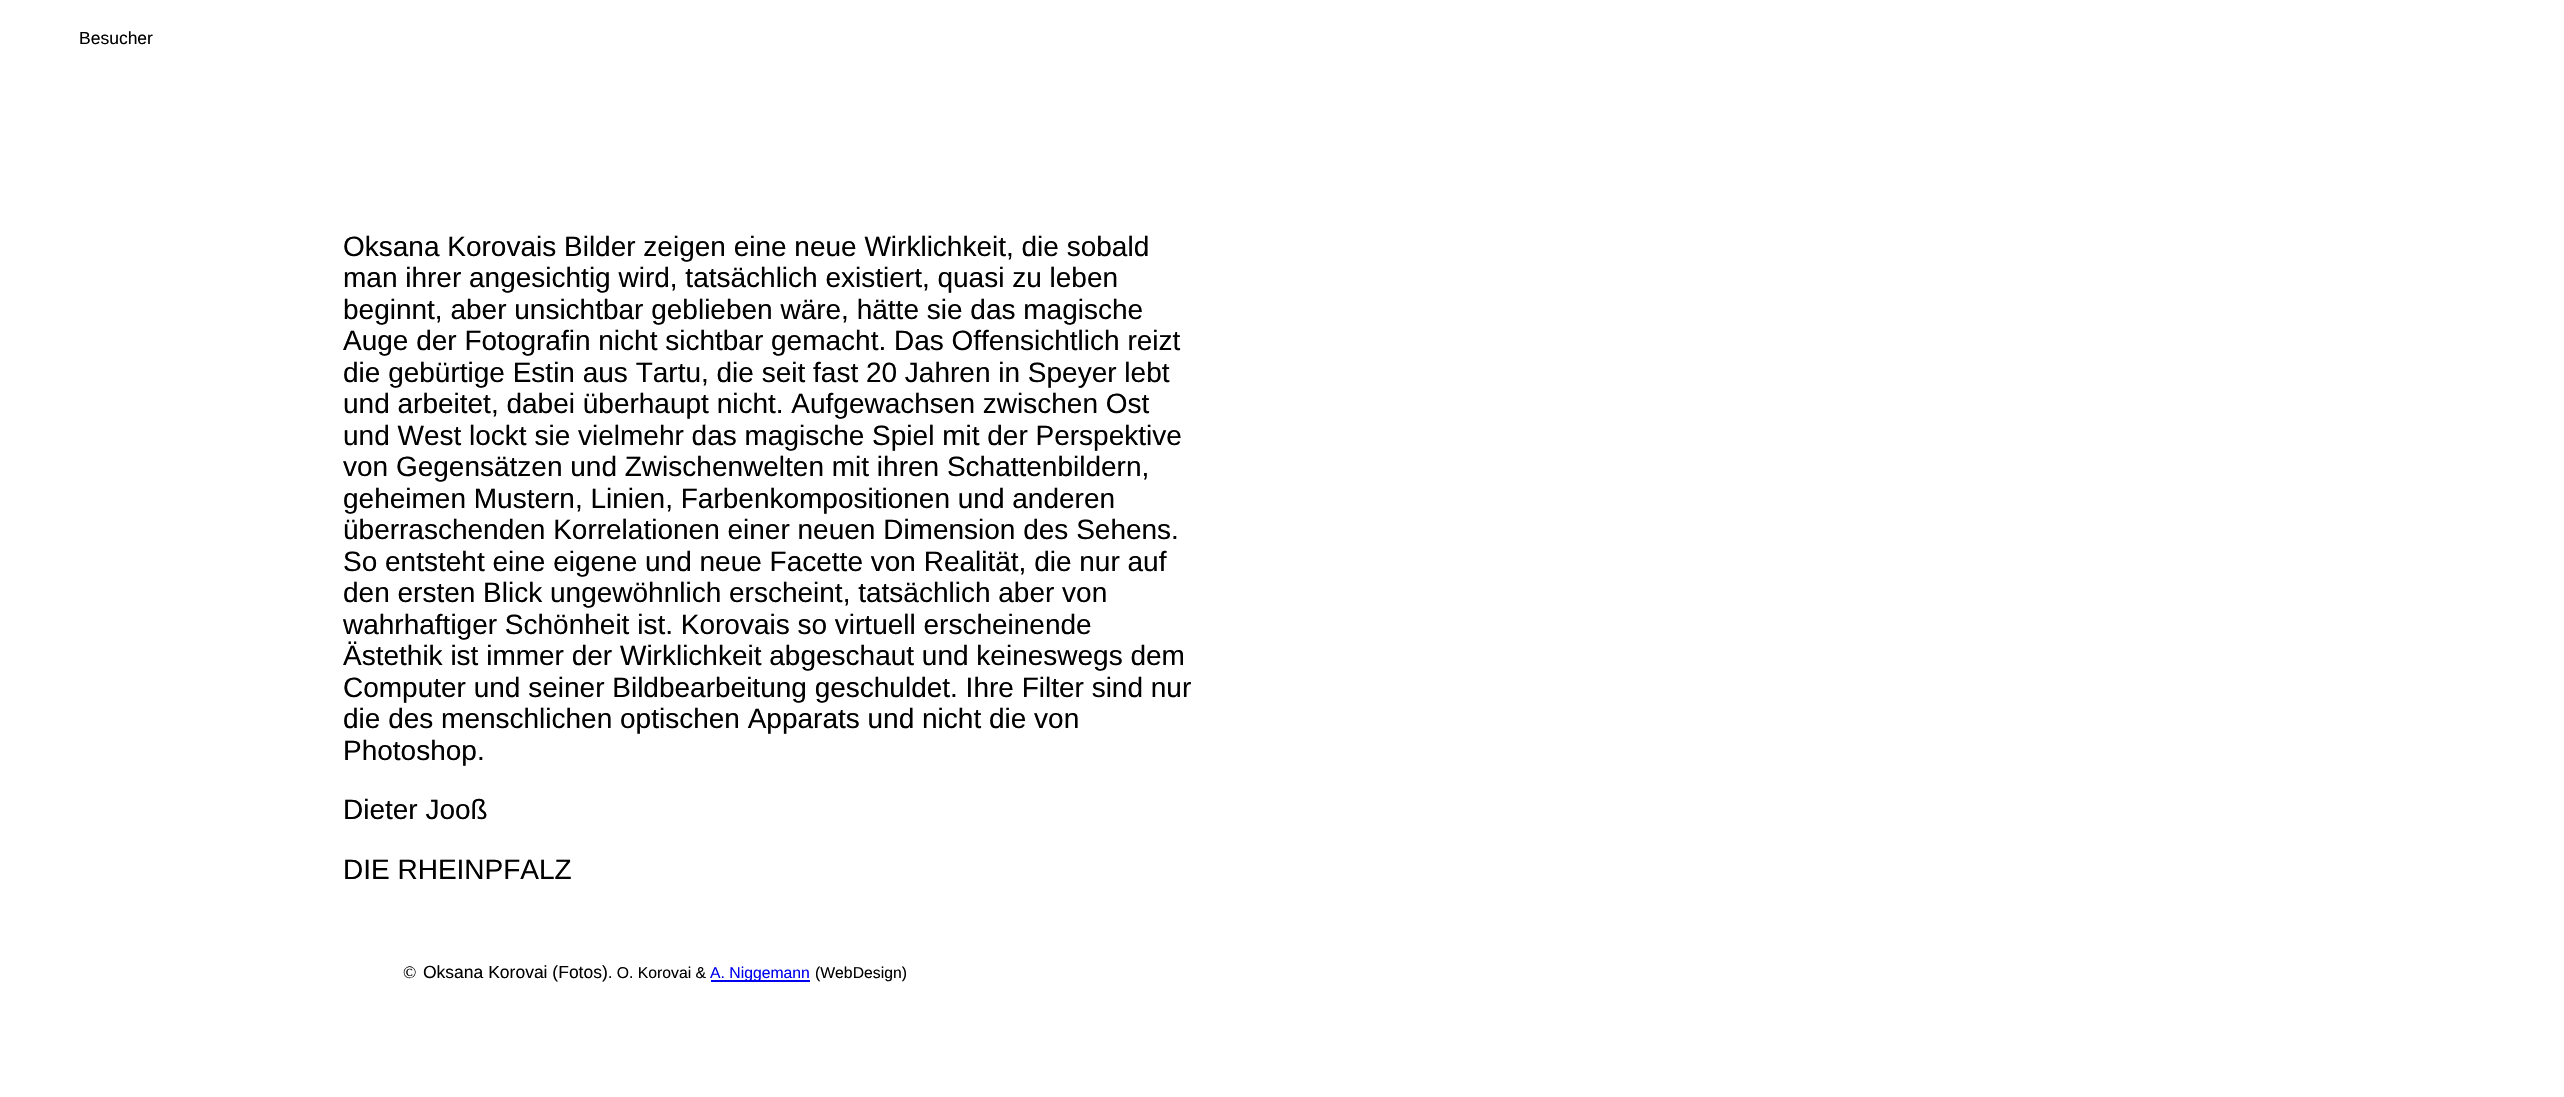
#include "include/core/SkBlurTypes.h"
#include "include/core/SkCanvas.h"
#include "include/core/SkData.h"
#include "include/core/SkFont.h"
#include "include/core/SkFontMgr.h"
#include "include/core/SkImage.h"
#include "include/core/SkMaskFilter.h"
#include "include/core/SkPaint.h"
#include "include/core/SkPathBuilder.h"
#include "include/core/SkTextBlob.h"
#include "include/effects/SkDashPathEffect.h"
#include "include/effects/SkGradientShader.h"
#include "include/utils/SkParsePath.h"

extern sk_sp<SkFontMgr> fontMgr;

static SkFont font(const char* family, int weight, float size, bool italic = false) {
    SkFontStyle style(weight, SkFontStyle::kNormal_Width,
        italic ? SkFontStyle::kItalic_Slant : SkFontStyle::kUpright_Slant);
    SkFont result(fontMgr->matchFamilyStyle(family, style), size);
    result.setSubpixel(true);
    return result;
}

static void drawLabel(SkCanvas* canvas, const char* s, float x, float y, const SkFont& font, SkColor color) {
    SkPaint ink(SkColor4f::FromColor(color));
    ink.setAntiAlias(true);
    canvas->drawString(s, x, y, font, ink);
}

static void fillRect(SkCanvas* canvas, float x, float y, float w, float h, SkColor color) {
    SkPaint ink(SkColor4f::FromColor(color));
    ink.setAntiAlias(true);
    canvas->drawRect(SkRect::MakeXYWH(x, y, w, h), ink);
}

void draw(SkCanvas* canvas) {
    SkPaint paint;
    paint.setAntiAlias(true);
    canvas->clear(0xFFFFFFFF);
    SkFont font1 = font("Liberation Sans", 400, 17.5f);
    drawLabel(canvas, "Besucher", 79, 44, font1, 0xFF000000);
    SkFont font2 = font("Liberation Sans", 400, 28);
    drawLabel(canvas, "Oksana Korovais Bilder zeigen eine neue Wirklichkeit, die sobald", 343, 256, font2, 0xFF000000);
    drawLabel(canvas, "man ihrer angesichtig wird, tatsächlich existiert, quasi zu leben", 343, 287, font2, 0xFF000000);
    drawLabel(canvas, "beginnt, aber unsichtbar geblieben wäre, hätte sie das magische", 343, 319, font2, 0xFF000000);
    drawLabel(canvas, "Auge der Fotografin nicht sichtbar gemacht. Das Offensichtlich reizt", 343, 350, font2, 0xFF000000);
    drawLabel(canvas, "die gebürtige Estin aus Tartu, die seit fast 20 Jahren in Speyer lebt", 343, 382, font2, 0xFF000000);
    drawLabel(canvas, "und arbeitet, dabei überhaupt nicht. Aufgewachsen zwischen Ost", 343, 413, font2, 0xFF000000);
    drawLabel(canvas, "und West lockt sie vielmehr das magische Spiel mit der Perspektive", 343, 445, font2, 0xFF000000);
    drawLabel(canvas, "von Gegensätzen und Zwischenwelten mit ihren Schattenbildern,", 343, 476, font2, 0xFF000000);
    drawLabel(canvas, "geheimen Mustern, Linien, Farbenkompositionen und anderen", 343, 508, font2, 0xFF000000);
    drawLabel(canvas, "überraschenden Korrelationen einer neuen Dimension des Sehens.", 343, 539, font2, 0xFF000000);
    drawLabel(canvas, "So entsteht eine eigene und neue Facette von Realität, die nur auf", 343, 571, font2, 0xFF000000);
    drawLabel(canvas, "den ersten Blick ungewöhnlich erscheint, tatsächlich aber von", 343, 602, font2, 0xFF000000);
    drawLabel(canvas, "wahrhaftiger Schönheit ist. Korovais so virtuell erscheinende", 343, 634, font2, 0xFF000000);
    drawLabel(canvas, "Ästethik ist immer der Wirklichkeit abgeschaut und keineswegs dem", 343, 665, font2, 0xFF000000);
    drawLabel(canvas, "Computer und seiner Bildbearbeitung geschuldet. Ihre Filter sind nur", 343, 697, font2, 0xFF000000);
    drawLabel(canvas, "die des menschlichen optischen Apparats und nicht die von", 343, 728, font2, 0xFF000000);
    drawLabel(canvas, "Photoshop.", 343, 760, font2, 0xFF000000);
    drawLabel(canvas, "Dieter Jooß", 343, 819, font2, 0xFF000000);
    drawLabel(canvas, "DIE RHEINPFALZ", 343, 879, font2, 0xFF000000);
    SkFont font3 = font("Liberation Serif", 400, 17.5f);
    drawLabel(canvas, "©", 403, 978, font3, 0xFF000000);
    drawLabel(canvas, "Oksana Korovai (Fotos)", 423, 978, font1, 0xFF000000);
    SkFont font4 = font("Liberation Sans", 400, 15.75f);
    drawLabel(canvas, ". O. Korovai &", 608, 978, font4, 0xFF000000);
    fillRect(canvas, 711, 980, 99, 2, 0xFF0000EE);
    drawLabel(canvas, "A. Niggemann", 710, 978, font4, 0xFF0000EE);
    drawLabel(canvas, "(WebDesign)", 815, 978, font4, 0xFF000000);
}
